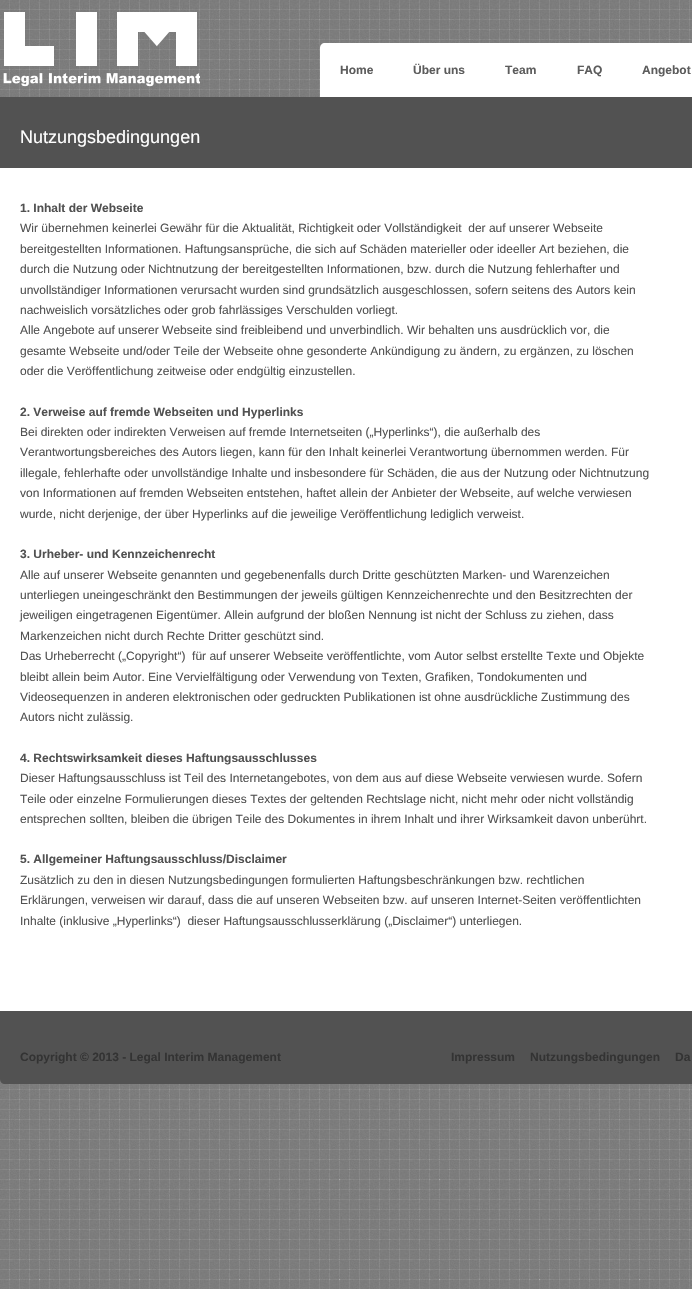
#include "include/core/SkBlurTypes.h"
#include "include/core/SkCanvas.h"
#include "include/core/SkData.h"
#include "include/core/SkFont.h"
#include "include/core/SkFontMgr.h"
#include "include/core/SkImage.h"
#include "include/core/SkMaskFilter.h"
#include "include/core/SkPaint.h"
#include "include/core/SkPathBuilder.h"
#include "include/core/SkTextBlob.h"
#include "include/effects/SkDashPathEffect.h"
#include "include/effects/SkGradientShader.h"
#include "include/utils/SkParsePath.h"

extern sk_sp<SkFontMgr> fontMgr;

static SkFont font(const char* family, int weight, float size, bool italic = false) {
    SkFontStyle style(weight, SkFontStyle::kNormal_Width,
        italic ? SkFontStyle::kItalic_Slant : SkFontStyle::kUpright_Slant);
    SkFont result(fontMgr->matchFamilyStyle(family, style), size);
    result.setSubpixel(true);
    return result;
}

static void drawLabel(SkCanvas* canvas, const char* s, float x, float y, const SkFont& font, SkColor color) {
    SkPaint ink(SkColor4f::FromColor(color));
    ink.setAntiAlias(true);
    canvas->drawString(s, x, y, font, ink);
}

static void fillRect(SkCanvas* canvas, float x, float y, float w, float h, SkColor color) {
    SkPaint ink(SkColor4f::FromColor(color));
    ink.setAntiAlias(true);
    canvas->drawRect(SkRect::MakeXYWH(x, y, w, h), ink);
}

static void drawPhoto(SkCanvas* canvas, const char* path, float x, float y, float w, float h) {
    auto image = SkImages::DeferredFromEncodedData(SkData::MakeFromFileName(path));
    canvas->drawImageRect(image, SkRect::MakeXYWH(x, y, w, h), SkSamplingOptions());
}

static SkPath parsePath(const char* data, bool evenOdd = false) {
    SkPath result = *SkParsePath::FromSVGString(data);
    if (evenOdd) result.setFillType(SkPathFillType::kEvenOdd);
    return result;
}

void draw(SkCanvas* canvas) {
    SkPaint paint;
    paint.setAntiAlias(true);
    canvas->clear(0xFFD4D4D4);
    drawPhoto(canvas, "assets/img1.png", 0, 0, 692, 1289);
    drawPhoto(canvas, "assets/img2.png", 3, 12, 197, 75);
    paint.setColor(0xFFFFFFFF);
    canvas->drawPath(parsePath("M325 43H692C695 43 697 45 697 48V97H320V48C320 45 322 43 325 43Z"), paint);
    SkFont font1 = font("Liberation Sans", 700, 12);
    drawLabel(canvas, "Home", 340, 74, font1, 0xFF5C5C5C);
    drawLabel(canvas, "Über uns", 413, 74, font1, 0xFF5C5C5C);
    drawLabel(canvas, "Team", 505, 74, font1, 0xFF5C5C5C);
    drawLabel(canvas, "FAQ", 577, 74, font1, 0xFF5C5C5C);
    drawLabel(canvas, "Angebot", 642, 74, font1, 0xFF5C5C5C);
    fillRect(canvas, 0, 97, 692, 71, 0xFF525252);
    SkFont font2 = font("Liberation Sans", 400, 18);
    drawLabel(canvas, "Nutzungsbedingungen", 20, 143, font2, 0xFFFFFFFF);
    fillRect(canvas, 0, 168, 692, 843, 0xFFFFFFFF);
    drawLabel(canvas, "1. Inhalt der Webseite", 20, 212, font1, 0xFF515151);
    SkFont font3 = font("Liberation Sans", 400, 12);
    drawLabel(canvas, "Wir übernehmen keinerlei Gewähr für die Aktualität, Richtigkeit oder Vollständigkeit  der auf unserer Webseite", 20, 232, font3, 0xFF515151);
    drawLabel(canvas, "bereitgestellten Informationen. Haftungsansprüche, die sich auf Schäden materieller oder ideeller Art beziehen, die", 20, 253, font3, 0xFF515151);
    drawLabel(canvas, "durch die Nutzung oder Nichtnutzung der bereitgestellten Informationen, bzw. durch die Nutzung fehlerhafter und", 20, 273, font3, 0xFF515151);
    drawLabel(canvas, "unvollständiger Informationen verursacht wurden sind grundsätzlich ausgeschlossen, sofern seitens des Autors kein", 20, 294, font3, 0xFF515151);
    drawLabel(canvas, "nachweislich vorsätzliches oder grob fahrlässiges Verschulden vorliegt.", 20, 314, font3, 0xFF515151);
    drawLabel(canvas, "Alle Angebote auf unserer Webseite sind freibleibend und unverbindlich. Wir behalten uns ausdrücklich vor, die", 20, 334, font3, 0xFF515151);
    drawLabel(canvas, "gesamte Webseite und/oder Teile der Webseite ohne gesonderte Ankündigung zu ändern, zu ergänzen, zu löschen", 20, 355, font3, 0xFF515151);
    drawLabel(canvas, "oder die Veröffentlichung zeitweise oder endgültig einzustellen.", 20, 375, font3, 0xFF515151);
    drawLabel(canvas, "2. Verweise auf fremde Webseiten und Hyperlinks", 20, 416, font1, 0xFF515151);
    drawLabel(canvas, "Bei direkten oder indirekten Verweisen auf fremde Internetseiten („Hyperlinks“), die außerhalb des", 20, 436, font3, 0xFF515151);
    drawLabel(canvas, "Verantwortungsbereiches des Autors liegen, kann für den Inhalt keinerlei Verantwortung übernommen werden. Für", 20, 456, font3, 0xFF515151);
    drawLabel(canvas, "illegale, fehlerhafte oder unvollständige Inhalte und insbesondere für Schäden, die aus der Nutzung oder Nichtnutzung", 20, 477, font3, 0xFF515151);
    drawLabel(canvas, "von Informationen auf fremden Webseiten entstehen, haftet allein der Anbieter der Webseite, auf welche verwiesen", 20, 497, font3, 0xFF515151);
    drawLabel(canvas, "wurde, nicht derjenige, der über Hyperlinks auf die jeweilige Veröffentlichung lediglich verweist.", 20, 518, font3, 0xFF515151);
    drawLabel(canvas, "3. Urheber- und Kennzeichenrecht", 20, 558, font1, 0xFF515151);
    drawLabel(canvas, "Alle auf unserer Webseite genannten und gegebenenfalls durch Dritte geschützten Marken- und Warenzeichen", 20, 579, font3, 0xFF515151);
    drawLabel(canvas, "unterliegen uneingeschränkt den Bestimmungen der jeweils gültigen Kennzeichenrechte und den Besitzrechten der", 20, 599, font3, 0xFF515151);
    drawLabel(canvas, "jeweiligen eingetragenen Eigentümer. Allein aufgrund der bloßen Nennung ist nicht der Schluss zu ziehen, dass", 20, 619, font3, 0xFF515151);
    drawLabel(canvas, "Markenzeichen nicht durch Rechte Dritter geschützt sind.", 20, 640, font3, 0xFF515151);
    drawLabel(canvas, "Das Urheberrecht („Copyright“)  für auf unserer Webseite veröffentlichte, vom Autor selbst erstellte Texte und Objekte", 20, 660, font3, 0xFF515151);
    drawLabel(canvas, "bleibt allein beim Autor. Eine Vervielfältigung oder Verwendung von Texten, Grafiken, Tondokumenten und", 20, 681, font3, 0xFF515151);
    drawLabel(canvas, "Videosequenzen in anderen elektronischen oder gedruckten Publikationen ist ohne ausdrückliche Zustimmung des", 20, 701, font3, 0xFF515151);
    drawLabel(canvas, "Autors nicht zulässig.", 20, 721, font3, 0xFF515151);
    drawLabel(canvas, "4. Rechtswirksamkeit dieses Haftungsausschlusses", 20, 762, font1, 0xFF515151);
    drawLabel(canvas, "Dieser Haftungsausschluss ist Teil des Internetangebotes, von dem aus auf diese Webseite verwiesen wurde. Sofern", 20, 782, font3, 0xFF515151);
    drawLabel(canvas, "Teile oder einzelne Formulierungen dieses Textes der geltenden Rechtslage nicht, nicht mehr oder nicht vollständig", 20, 803, font3, 0xFF515151);
    drawLabel(canvas, "entsprechen sollten, bleiben die übrigen Teile des Dokumentes in ihrem Inhalt und ihrer Wirksamkeit davon unberührt.", 20, 823, font3, 0xFF515151);
    drawLabel(canvas, "5. Allgemeiner Haftungsausschluss/Disclaimer", 20, 863, font1, 0xFF515151);
    drawLabel(canvas, "Zusätzlich zu den in diesen Nutzungsbedingungen formulierten Haftungsbeschränkungen bzw. rechtlichen", 20, 884, font3, 0xFF515151);
    drawLabel(canvas, "Erklärungen, verweisen wir darauf, dass die auf unseren Webseiten bzw. auf unseren Internet-Seiten veröffentlichten", 20, 904, font3, 0xFF515151);
    drawLabel(canvas, "Inhalte (inklusive „Hyperlinks“)  dieser Haftungsausschlusserklärung („Disclaimer“) unterliegen.", 20, 925, font3, 0xFF515151);
    paint.setColor(0xFF525252);
    canvas->drawPath(parsePath("M0 1011H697V1079C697 1082 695 1084 692 1084H5C2 1084 0 1082 0 1079Z"), paint);
    drawLabel(canvas, "Copyright © 2013 - Legal Interim Management", 20, 1061, font1, 0xFF333333);
    drawLabel(canvas, "Impressum", 451, 1061, font1, 0xFF333333);
    drawLabel(canvas, "Nutzungsbedingungen", 530, 1061, font1, 0xFF333333);
    drawLabel(canvas, "Da", 675, 1061, font1, 0xFF333333);
}
